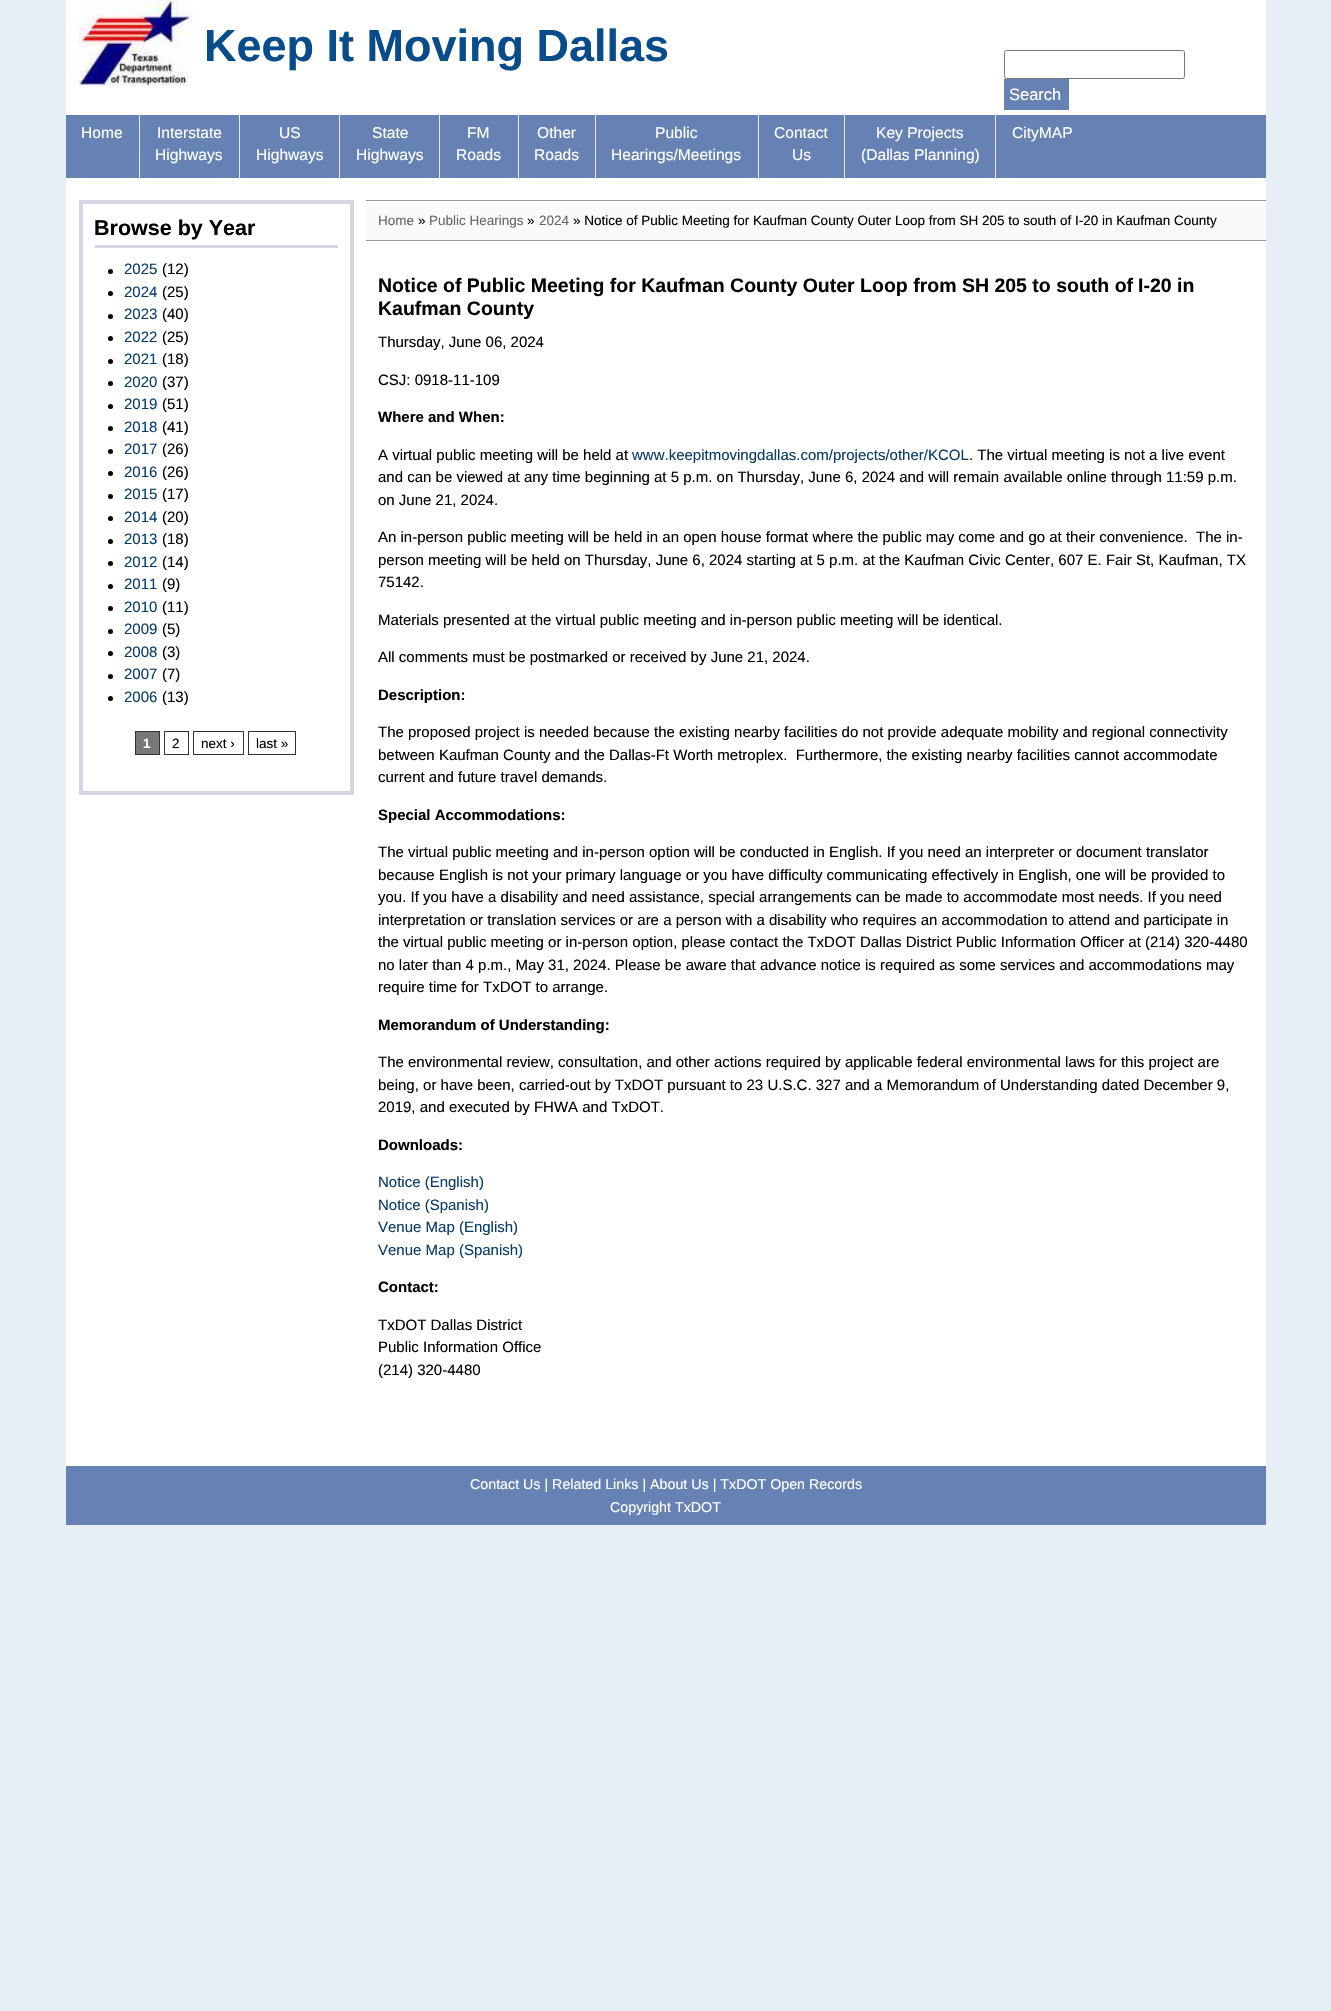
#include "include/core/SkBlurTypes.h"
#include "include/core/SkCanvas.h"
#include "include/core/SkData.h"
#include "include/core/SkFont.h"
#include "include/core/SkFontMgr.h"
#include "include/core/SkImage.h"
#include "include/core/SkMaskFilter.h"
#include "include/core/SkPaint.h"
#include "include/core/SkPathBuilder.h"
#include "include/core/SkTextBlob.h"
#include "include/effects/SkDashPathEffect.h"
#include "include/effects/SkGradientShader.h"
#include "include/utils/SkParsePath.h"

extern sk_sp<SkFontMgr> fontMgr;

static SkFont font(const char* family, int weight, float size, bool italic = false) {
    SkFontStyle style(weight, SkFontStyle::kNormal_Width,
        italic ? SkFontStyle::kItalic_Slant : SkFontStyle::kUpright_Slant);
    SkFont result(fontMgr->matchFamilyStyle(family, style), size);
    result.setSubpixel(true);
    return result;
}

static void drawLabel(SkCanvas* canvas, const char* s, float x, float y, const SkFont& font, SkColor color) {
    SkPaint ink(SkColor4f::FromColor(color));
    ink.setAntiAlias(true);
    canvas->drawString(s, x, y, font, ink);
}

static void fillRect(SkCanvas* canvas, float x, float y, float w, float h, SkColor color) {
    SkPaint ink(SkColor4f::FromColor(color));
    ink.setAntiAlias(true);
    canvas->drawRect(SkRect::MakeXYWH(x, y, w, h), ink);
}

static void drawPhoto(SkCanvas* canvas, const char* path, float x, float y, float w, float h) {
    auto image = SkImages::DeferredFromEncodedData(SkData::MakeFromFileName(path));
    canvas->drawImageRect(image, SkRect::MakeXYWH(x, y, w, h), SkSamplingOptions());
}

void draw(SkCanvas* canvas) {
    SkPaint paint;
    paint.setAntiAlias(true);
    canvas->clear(0xFFE7EFF6);
    fillRect(canvas, 66, 0, 1200, 115, 0xFFFFFFFF);
    drawPhoto(canvas, "assets/img1.png", 78, 0, 115, 87);
    SkFont font1 = font("Liberation Sans", 700, 45);
    drawLabel(canvas, "Keep It Moving Dallas", 204, 61, font1, 0xFF084C8C);
    paint.setStroke(true);
    paint.setStrokeWidth(1);
    paint.setColor(0xFF767676);
    canvas->drawRoundRect(SkRect::MakeXYWH(1004.5f, 50.5f, 180, 28), 2, 2, paint);
    fillRect(canvas, 1004, 79, 65, 31, 0xFF6682B5);
    SkFont font2 = font("Liberation Sans", 400, 16.5f);
    drawLabel(canvas, "Search", 1009, 100, font2, 0xFFFFFFFF);
    fillRect(canvas, 66, 115, 1200, 63, 0xFF6682B5);
    fillRect(canvas, 139, 115, 1, 63, 0xFFE7EFF6);
    SkFont font3 = font("Liberation Sans", 400, 15.6f);
    drawLabel(canvas, "Home", 81, 138, font3, 0xFFFFFFFF);
    fillRect(canvas, 239, 115, 1, 63, 0xFFE7EFF6);
    drawLabel(canvas, "Interstate", 157, 138, font3, 0xFFFFFFFF);
    drawLabel(canvas, "Highways", 155, 160, font3, 0xFFFFFFFF);
    fillRect(canvas, 339, 115, 1, 63, 0xFFE7EFF6);
    drawLabel(canvas, "US", 279, 138, font3, 0xFFFFFFFF);
    drawLabel(canvas, "Highways", 256, 160, font3, 0xFFFFFFFF);
    fillRect(canvas, 439, 115, 1, 63, 0xFFE7EFF6);
    drawLabel(canvas, "State", 372, 138, font3, 0xFFFFFFFF);
    drawLabel(canvas, "Highways", 356, 160, font3, 0xFFFFFFFF);
    fillRect(canvas, 518, 115, 1, 63, 0xFFE7EFF6);
    drawLabel(canvas, "FM", 467, 138, font3, 0xFFFFFFFF);
    drawLabel(canvas, "Roads", 456, 160, font3, 0xFFFFFFFF);
    fillRect(canvas, 595, 115, 1, 63, 0xFFE7EFF6);
    drawLabel(canvas, "Other", 537, 138, font3, 0xFFFFFFFF);
    drawLabel(canvas, "Roads", 534, 160, font3, 0xFFFFFFFF);
    fillRect(canvas, 758, 115, 1, 63, 0xFFE7EFF6);
    drawLabel(canvas, "Public", 655, 138, font3, 0xFFFFFFFF);
    drawLabel(canvas, "Hearings/Meetings", 611, 160, font3, 0xFFFFFFFF);
    fillRect(canvas, 844, 115, 1, 63, 0xFFE7EFF6);
    drawLabel(canvas, "Contact", 774, 138, font3, 0xFFFFFFFF);
    drawLabel(canvas, "Us", 792, 160, font3, 0xFFFFFFFF);
    fillRect(canvas, 995, 115, 1, 63, 0xFFE7EFF6);
    drawLabel(canvas, "Key Projects", 876, 138, font3, 0xFFFFFFFF);
    drawLabel(canvas, "(Dallas Planning)", 861, 160, font3, 0xFFFFFFFF);
    drawLabel(canvas, "CityMAP", 1012, 138, font3, 0xFFFFFFFF);
    fillRect(canvas, 66, 178, 1200, 1288, 0xFFFFFFFF);
    paint.setStrokeWidth(4);
    paint.setColor(0xFFD5D5E5);
    canvas->drawRect(SkRect::MakeXYWH(81, 202, 271, 591), paint);
    fillRect(canvas, 95, 245, 243, 3, 0xFFD5D5E5);
    SkFont font4 = font("Liberation Sans", 700, 21.5f);
    drawLabel(canvas, "Browse by Year", 94, 235, font4, 0xFF000000);
    paint.setStroke(false);
    paint.setColor(0xFF000000);
    canvas->drawCircle(110.5f, 271.5f, 2.5f, paint);
    SkFont font5 = font("Liberation Sans", 400, 15);
    drawLabel(canvas, "2025", 124, 274, font5, 0xFF063A6A);
    drawLabel(canvas, "(12)", 162, 274, font5, 0xFF000000);
    canvas->drawCircle(110.5f, 293.5f, 2.5f, paint);
    drawLabel(canvas, "2024", 124, 297, font5, 0xFF063A6A);
    drawLabel(canvas, "(25)", 162, 297, font5, 0xFF000000);
    canvas->drawCircle(110.5f, 316.5f, 2.5f, paint);
    drawLabel(canvas, "2023", 124, 319, font5, 0xFF063A6A);
    drawLabel(canvas, "(40)", 162, 319, font5, 0xFF000000);
    canvas->drawCircle(110.5f, 338.5f, 2.5f, paint);
    drawLabel(canvas, "2022", 124, 342, font5, 0xFF063A6A);
    drawLabel(canvas, "(25)", 162, 342, font5, 0xFF000000);
    canvas->drawCircle(110.5f, 361.5f, 2.5f, paint);
    drawLabel(canvas, "2021", 124, 364, font5, 0xFF063A6A);
    drawLabel(canvas, "(18)", 162, 364, font5, 0xFF000000);
    canvas->drawCircle(110.5f, 383.5f, 2.5f, paint);
    drawLabel(canvas, "2020", 124, 387, font5, 0xFF063A6A);
    drawLabel(canvas, "(37)", 162, 387, font5, 0xFF000000);
    canvas->drawCircle(110.5f, 406.5f, 2.5f, paint);
    drawLabel(canvas, "2019", 124, 409, font5, 0xFF063A6A);
    drawLabel(canvas, "(51)", 162, 409, font5, 0xFF000000);
    canvas->drawCircle(110.5f, 428.5f, 2.5f, paint);
    drawLabel(canvas, "2018", 124, 432, font5, 0xFF063A6A);
    drawLabel(canvas, "(41)", 162, 432, font5, 0xFF000000);
    canvas->drawCircle(110.5f, 451.5f, 2.5f, paint);
    drawLabel(canvas, "2017", 124, 454, font5, 0xFF063A6A);
    drawLabel(canvas, "(26)", 162, 454, font5, 0xFF000000);
    canvas->drawCircle(110.5f, 473.5f, 2.5f, paint);
    drawLabel(canvas, "2016", 124, 477, font5, 0xFF063A6A);
    drawLabel(canvas, "(26)", 162, 477, font5, 0xFF000000);
    canvas->drawCircle(110.5f, 496.5f, 2.5f, paint);
    drawLabel(canvas, "2015", 124, 499, font5, 0xFF063A6A);
    drawLabel(canvas, "(17)", 162, 499, font5, 0xFF000000);
    canvas->drawCircle(110.5f, 518.5f, 2.5f, paint);
    drawLabel(canvas, "2014", 124, 522, font5, 0xFF063A6A);
    drawLabel(canvas, "(20)", 162, 522, font5, 0xFF000000);
    canvas->drawCircle(110.5f, 541.5f, 2.5f, paint);
    drawLabel(canvas, "2013", 124, 544, font5, 0xFF063A6A);
    drawLabel(canvas, "(18)", 162, 544, font5, 0xFF000000);
    canvas->drawCircle(110.5f, 563.5f, 2.5f, paint);
    drawLabel(canvas, "2012", 124, 567, font5, 0xFF063A6A);
    drawLabel(canvas, "(14)", 162, 567, font5, 0xFF000000);
    canvas->drawCircle(110.5f, 586.5f, 2.5f, paint);
    drawLabel(canvas, "2011", 124, 589, font5, 0xFF063A6A);
    drawLabel(canvas, "(9)", 162, 589, font5, 0xFF000000);
    canvas->drawCircle(110.5f, 608.5f, 2.5f, paint);
    drawLabel(canvas, "2010", 124, 612, font5, 0xFF063A6A);
    drawLabel(canvas, "(11)", 162, 612, font5, 0xFF000000);
    canvas->drawCircle(110.5f, 631.5f, 2.5f, paint);
    drawLabel(canvas, "2009", 124, 634, font5, 0xFF063A6A);
    drawLabel(canvas, "(5)", 162, 634, font5, 0xFF000000);
    canvas->drawCircle(110.5f, 653.5f, 2.5f, paint);
    drawLabel(canvas, "2008", 124, 657, font5, 0xFF063A6A);
    drawLabel(canvas, "(3)", 162, 657, font5, 0xFF000000);
    canvas->drawCircle(110.5f, 676.5f, 2.5f, paint);
    drawLabel(canvas, "2007", 124, 679, font5, 0xFF063A6A);
    drawLabel(canvas, "(7)", 162, 679, font5, 0xFF000000);
    canvas->drawCircle(110.5f, 698.5f, 2.5f, paint);
    drawLabel(canvas, "2006", 124, 702, font5, 0xFF063A6A);
    drawLabel(canvas, "(13)", 162, 702, font5, 0xFF000000);
    paint.setColor(0xFF777777);
    canvas->drawRect(SkRect::MakeXYWH(135.5f, 731.5f, 24, 23), paint);
    paint.setStroke(true);
    paint.setStrokeWidth(1);
    paint.setColor(0xFF333333);
    canvas->drawRect(SkRect::MakeXYWH(135.5f, 731.5f, 24, 23), paint);
    SkFont font6 = font("Liberation Sans", 700, 13.5f);
    drawLabel(canvas, "1", 143, 748, font6, 0xFFFFFFFF);
    canvas->drawRect(SkRect::MakeXYWH(164.5f, 731.5f, 24, 23), paint);
    SkFont font7 = font("Liberation Sans", 400, 13.5f);
    drawLabel(canvas, "2", 172, 748, font7, 0xFF000000);
    canvas->drawRect(SkRect::MakeXYWH(193.5f, 731.5f, 50, 23), paint);
    drawLabel(canvas, "next ›", 201, 748, font7, 0xFF000000);
    canvas->drawRect(SkRect::MakeXYWH(248.5f, 731.5f, 47, 23), paint);
    drawLabel(canvas, "last »", 256, 748, font7, 0xFF000000);
    fillRect(canvas, 366, 201, 900, 39, 0xFFFAFAFA);
    fillRect(canvas, 366, 200, 900, 1, 0xFF999999);
    fillRect(canvas, 366, 240, 900, 1, 0xFF999999);
    drawLabel(canvas, "Home", 378, 225, font7, 0xFF666666);
    drawLabel(canvas, "»", 418, 225, font7, 0xFF000000);
    drawLabel(canvas, "Public Hearings", 429, 225, font7, 0xFF666666);
    drawLabel(canvas, "»", 527, 225, font7, 0xFF000000);
    drawLabel(canvas, "2024", 539, 225, font7, 0xFF666666);
    drawLabel(canvas, "» Notice of Public Meeting for Kaufman County Outer Loop from SH 205 to south of I-20 in Kaufman County", 573, 225, font7, 0xFF000000);
    SkFont font8 = font("Liberation Sans", 700, 19.5f);
    drawLabel(canvas, "Notice of Public Meeting for Kaufman County Outer Loop from SH 205 to south of", 378, 292, font8, 0xFF000000);
    drawLabel(canvas, "I-20 in", 1138, 292, font8, 0xFF000000);
    drawLabel(canvas, "Kaufman County", 378, 315, font8, 0xFF000000);
    drawLabel(canvas, "Thursday, June 06, 2024", 378, 347, font5, 0xFF000000);
    drawLabel(canvas, "CSJ: 0918-11-109", 378, 385, font5, 0xFF000000);
    SkFont font9 = font("Liberation Sans", 700, 15);
    drawLabel(canvas, "Where and When:", 378, 422, font9, 0xFF000000);
    drawLabel(canvas, "A virtual public meeting will be held at", 378, 460, font5, 0xFF000000);
    drawLabel(canvas, "www.keepitmovingdallas.com/projects/other/KCOL", 632, 460, font5, 0xFF063A6A);
    drawLabel(canvas, ". The virtual meeting is not a live event", 969, 460, font5, 0xFF000000);
    drawLabel(canvas, "and can be viewed at any time beginning at 5 p.m. on Thursday, June 6, 2024 and will remain available online through 11:59 p.m.", 378, 482, font5, 0xFF000000);
    drawLabel(canvas, "on June 21, 2024.", 378, 505, font5, 0xFF000000);
    drawLabel(canvas, "An in-person public meeting will be held in an open house format where the public may come and go at their convenience.  The in-", 378, 542, font5, 0xFF000000);
    drawLabel(canvas, "person meeting will be held on Thursday, June 6, 2024 starting at 5 p.m. at the Kaufman Civic Center, 607 E. Fair St, Kaufman, TX", 378, 565, font5, 0xFF000000);
    drawLabel(canvas, "75142.", 378, 587, font5, 0xFF000000);
    drawLabel(canvas, "Materials presented at the virtual public meeting and in-person public meeting will be identical.", 378, 625, font5, 0xFF000000);
    drawLabel(canvas, "All comments must be postmarked or received by June 21, 2024.", 378, 662, font5, 0xFF000000);
    drawLabel(canvas, "Description:", 378, 700, font9, 0xFF000000);
    drawLabel(canvas, "The proposed project is needed because the existing nearby facilities do not provide adequate mobility and regional connectivity", 378, 737, font5, 0xFF000000);
    drawLabel(canvas, "between Kaufman County and the Dallas-Ft Worth metroplex.  Furthermore, the existing nearby facilities cannot accommodate", 378, 760, font5, 0xFF000000);
    drawLabel(canvas, "current and future travel demands.", 378, 782, font5, 0xFF000000);
    drawLabel(canvas, "Special Accommodations:", 378, 820, font9, 0xFF000000);
    drawLabel(canvas, "The virtual public meeting and in-person option will be conducted in English. If you need an interpreter or document translator", 378, 857, font5, 0xFF000000);
    drawLabel(canvas, "because English is not your primary language or you have difficulty communicating effectively in English, one will be provided to", 378, 880, font5, 0xFF000000);
    drawLabel(canvas, "you. If you have a disability and need assistance, special arrangements can be made to accommodate most needs. If you need", 378, 902, font5, 0xFF000000);
    drawLabel(canvas, "interpretation or translation services or are a person with a disability who requires an accommodation to attend and participate in", 378, 925, font5, 0xFF000000);
    drawLabel(canvas, "the virtual public meeting or in-person option, please contact the TxDOT Dallas District Public Information Officer at (214) 320-4480", 378, 947, font5, 0xFF000000);
    drawLabel(canvas, "no later than 4 p.m., May 31, 2024. Please be aware that advance notice is required as some services and accommodations may", 378, 970, font5, 0xFF000000);
    drawLabel(canvas, "require time for TxDOT to arrange.", 378, 992, font5, 0xFF000000);
    drawLabel(canvas, "Memorandum of Understanding:", 378, 1030, font9, 0xFF000000);
    drawLabel(canvas, "The environmental review, consultation, and other actions required by applicable federal environmental laws for this project are", 378, 1067, font5, 0xFF000000);
    drawLabel(canvas, "being, or have been, carried-out by TxDOT pursuant to 23 U.S.C. 327 and a Memorandum of Understanding dated December 9,", 378, 1090, font5, 0xFF000000);
    drawLabel(canvas, "2019, and executed by FHWA and TxDOT.", 378, 1112, font5, 0xFF000000);
    drawLabel(canvas, "Downloads:", 378, 1150, font9, 0xFF000000);
    drawLabel(canvas, "Notice (English)", 378, 1187, font5, 0xFF063A6A);
    drawLabel(canvas, "Notice (Spanish)", 378, 1210, font5, 0xFF063A6A);
    drawLabel(canvas, "Venue Map (English)", 378, 1232, font5, 0xFF063A6A);
    drawLabel(canvas, "Venue Map (Spanish)", 378, 1255, font5, 0xFF063A6A);
    drawLabel(canvas, "Contact:", 378, 1292, font9, 0xFF000000);
    drawLabel(canvas, "TxDOT Dallas District", 378, 1330, font5, 0xFF000000);
    drawLabel(canvas, "Public Information Office", 378, 1352, font5, 0xFF000000);
    drawLabel(canvas, "(214) 320-4480", 378, 1375, font5, 0xFF000000);
    fillRect(canvas, 66, 1466, 1200, 59, 0xFF6682B5);
    SkFont font10 = font("Liberation Sans", 400, 14.25f);
    drawLabel(canvas, "Contact Us | Related Links | About Us | TxDOT Open Records", 470, 1489, font10, 0xFFFFFFFF);
    drawLabel(canvas, "Copyright TxDOT", 610, 1512, font10, 0xFFFFFFFF);
}
